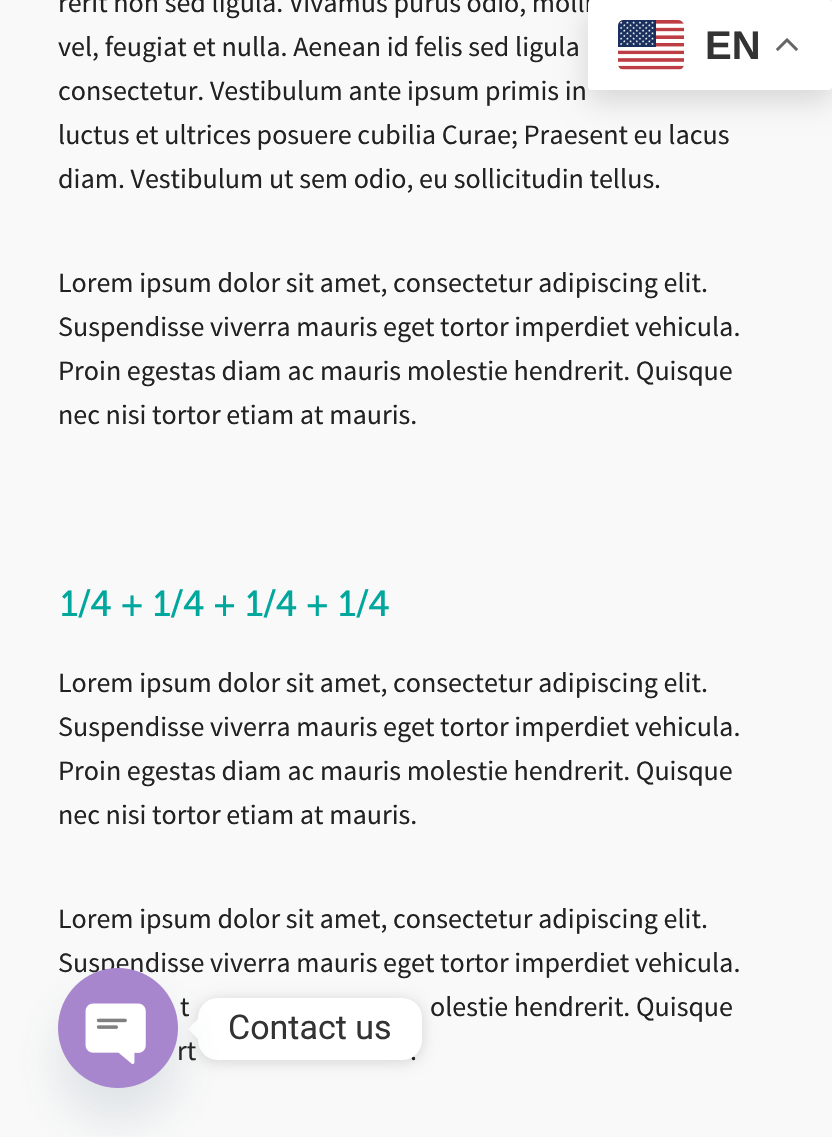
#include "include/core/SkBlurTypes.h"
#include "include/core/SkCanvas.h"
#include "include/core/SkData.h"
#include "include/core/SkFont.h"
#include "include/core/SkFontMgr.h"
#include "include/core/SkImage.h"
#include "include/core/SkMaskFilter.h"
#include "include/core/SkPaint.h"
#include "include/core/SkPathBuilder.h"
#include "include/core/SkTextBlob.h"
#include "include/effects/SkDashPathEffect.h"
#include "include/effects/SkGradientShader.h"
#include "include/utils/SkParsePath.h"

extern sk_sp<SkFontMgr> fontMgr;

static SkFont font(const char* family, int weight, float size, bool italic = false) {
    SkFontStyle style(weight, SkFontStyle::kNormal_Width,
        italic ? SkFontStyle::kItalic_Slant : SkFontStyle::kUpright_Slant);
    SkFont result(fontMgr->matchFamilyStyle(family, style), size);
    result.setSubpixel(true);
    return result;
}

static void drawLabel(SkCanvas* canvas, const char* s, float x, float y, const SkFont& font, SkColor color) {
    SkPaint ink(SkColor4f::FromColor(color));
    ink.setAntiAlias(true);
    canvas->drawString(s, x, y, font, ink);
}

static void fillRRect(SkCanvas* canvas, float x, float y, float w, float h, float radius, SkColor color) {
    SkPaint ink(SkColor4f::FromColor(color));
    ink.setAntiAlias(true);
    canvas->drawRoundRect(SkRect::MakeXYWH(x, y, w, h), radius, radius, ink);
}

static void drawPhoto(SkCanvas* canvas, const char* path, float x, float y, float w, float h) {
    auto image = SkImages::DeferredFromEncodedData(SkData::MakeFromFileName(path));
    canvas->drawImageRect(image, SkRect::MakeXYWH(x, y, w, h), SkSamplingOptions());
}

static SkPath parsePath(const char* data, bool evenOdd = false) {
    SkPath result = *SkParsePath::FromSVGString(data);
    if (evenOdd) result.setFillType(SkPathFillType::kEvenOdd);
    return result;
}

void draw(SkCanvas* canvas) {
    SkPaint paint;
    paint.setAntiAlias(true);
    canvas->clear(0xFFF9F9F9);
    SkFont font1 = font("Source Sans Pro", 400, 28);
    drawLabel(canvas, "rerit non sed ligula. Vivamus purus odio, molli", 58, 12, font1, 0xFF222222);
    drawLabel(canvas, "vel, feugiat et nulla. Aenean id felis sed ligula", 58, 56, font1, 0xFF222222);
    drawLabel(canvas, "consectetur. Vestibulum ante ipsum primis in", 58, 100, font1, 0xFF222222);
    drawLabel(canvas, "luctus et ultrices posuere cubilia Curae; Praesent eu lacus", 58, 144, font1, 0xFF222222);
    drawLabel(canvas, "diam. Vestibulum ut sem odio, eu sollicitudin tellus.", 58, 188, font1, 0xFF222222);
    drawLabel(canvas, "Lorem ipsum dolor sit amet, consectetur adipiscing elit.", 58, 292, font1, 0xFF222222);
    drawLabel(canvas, "Suspendisse viverra mauris eget tortor imperdiet vehicula.", 58, 336, font1, 0xFF222222);
    drawLabel(canvas, "Proin egestas diam ac mauris molestie hendrerit. Quisque", 58, 380, font1, 0xFF222222);
    drawLabel(canvas, "nec nisi tortor etiam at mauris.", 58, 424, font1, 0xFF222222);
    SkFont font2 = font("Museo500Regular", 400, 36);
    drawLabel(canvas, "1/4 + 1/4 + 1/4 + 1/4", 60, 616, font2, 0xFF00A79D);
    drawLabel(canvas, "Lorem ipsum dolor sit amet, consectetur adipiscing elit.", 58, 692, font1, 0xFF222222);
    drawLabel(canvas, "Suspendisse viverra mauris eget tortor imperdiet vehicula.", 58, 736, font1, 0xFF222222);
    drawLabel(canvas, "Proin egestas diam ac mauris molestie hendrerit. Quisque", 58, 780, font1, 0xFF222222);
    drawLabel(canvas, "nec nisi tortor etiam at mauris.", 58, 824, font1, 0xFF222222);
    drawLabel(canvas, "Lorem ipsum dolor sit amet, consectetur adipiscing elit.", 58, 928, font1, 0xFF222222);
    drawLabel(canvas, "Suspendisse viverra mauris eget tortor imperdiet vehicula.", 58, 972, font1, 0xFF222222);
    drawLabel(canvas, "t", 180, 1016, font1, 0xFF222222);
    drawLabel(canvas, "olestie hendrerit. Quisque", 430, 1016, font1, 0xFF222222);
    drawLabel(canvas, "rt", 177, 1060, font1, 0xFF222222);
    drawLabel(canvas, ".", 410, 1060, font1, 0xFF222222);
    paint.setColor(0x26000000);
    paint.setMaskFilter(SkMaskFilter::MakeBlur(kNormal_SkBlurStyle, 15));
    canvas->drawRoundRect(SkRect::MakeXYWH(588, 10, 244, 90), 4, 4, paint);
    paint.setMaskFilter(nullptr);
    fillRRect(canvas, 588, 0, 244, 90, 4, 0xFFFFFFFF);
    drawPhoto(canvas, "assets/img1.png", 618, 20, 66, 50);
    SkFont font3 = font("Liberation Sans", 700, 40);
    drawLabel(canvas, "EN", 705, 59, font3, 0xFF333333);
    drawPhoto(canvas, "assets/img2.png", 776, 38, 22, 13);
    paint.setMaskFilter(SkMaskFilter::MakeBlur(kNormal_SkBlurStyle, 7.5f));
    canvas->drawRoundRect(SkRect::MakeXYWH(198, 1000, 224, 62), 20, 20, paint);
    paint.setMaskFilter(nullptr);
    fillRRect(canvas, 198, 998, 224, 62, 20, 0xFFFFFFFF);
    paint.setColor(0xFFFFFFFF);
    canvas->drawPath(parsePath("M198 1019V1039L188 1029Z"), paint);
    paint.setColor(0x2949687E);
    paint.setMaskFilter(SkMaskFilter::MakeBlur(kNormal_SkBlurStyle, 24));
    canvas->drawRoundRect(SkRect::MakeXYWH(58, 1000, 120, 120), 60, 60, paint);
    paint.setMaskFilter(nullptr);
    drawPhoto(canvas, "assets/img3.png", 58, 968, 120, 120);
    SkFont font4 = font("Roboto", 400, 34);
    drawLabel(canvas, "Contact us", 228, 1039, font4, 0xFF333333);
}
